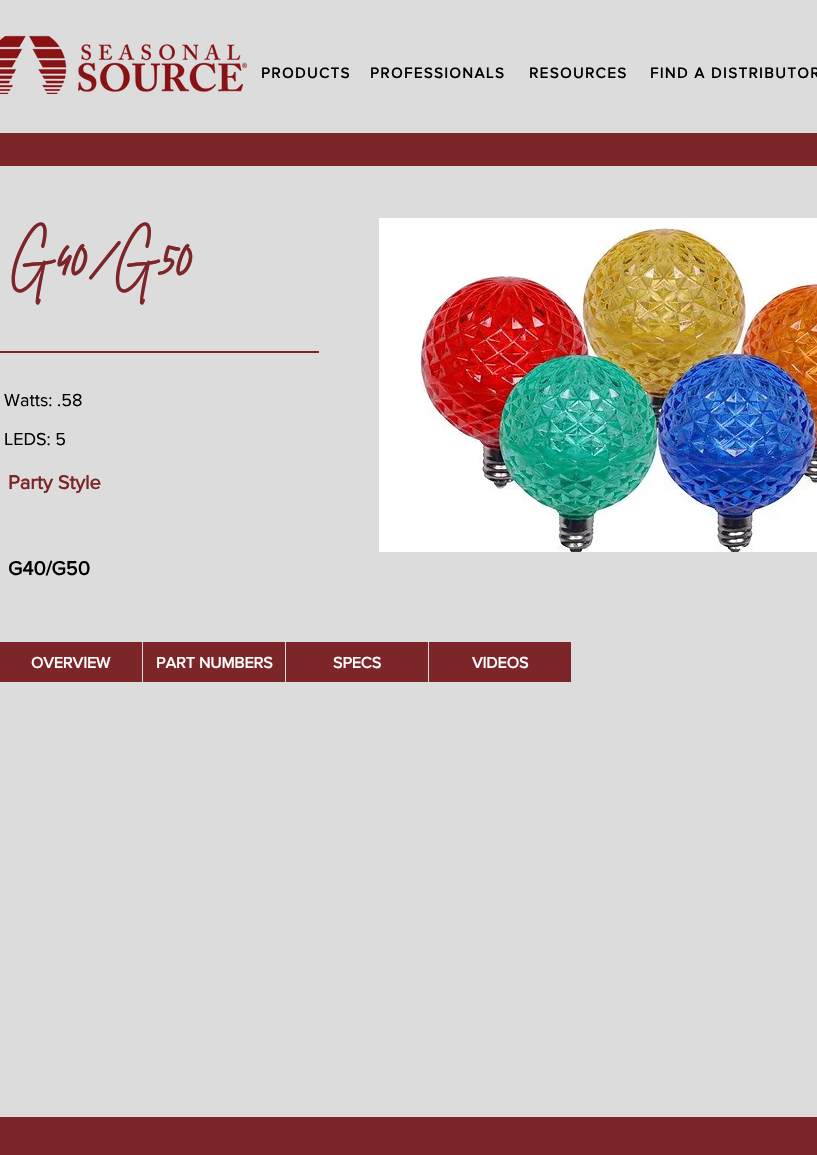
#include "include/core/SkBlurTypes.h"
#include "include/core/SkCanvas.h"
#include "include/core/SkData.h"
#include "include/core/SkFont.h"
#include "include/core/SkFontMgr.h"
#include "include/core/SkImage.h"
#include "include/core/SkMaskFilter.h"
#include "include/core/SkPaint.h"
#include "include/core/SkPathBuilder.h"
#include "include/core/SkTextBlob.h"
#include "include/effects/SkDashPathEffect.h"
#include "include/effects/SkGradientShader.h"
#include "include/utils/SkParsePath.h"

extern sk_sp<SkFontMgr> fontMgr;

static SkFont font(const char* family, int weight, float size, bool italic = false) {
    SkFontStyle style(weight, SkFontStyle::kNormal_Width,
        italic ? SkFontStyle::kItalic_Slant : SkFontStyle::kUpright_Slant);
    SkFont result(fontMgr->matchFamilyStyle(family, style), size);
    result.setSubpixel(true);
    return result;
}

static void drawLabel(SkCanvas* canvas, const char* s, float x, float y, const SkFont& font, SkColor color) {
    SkPaint ink(SkColor4f::FromColor(color));
    ink.setAntiAlias(true);
    canvas->drawString(s, x, y, font, ink);
}

static void drawTracked(SkCanvas* canvas, const char* s, float x, float y, const SkFont& font, const SkPaint& ink, float letter, float word) {
    std::vector<SkGlyphID> glyphs(font.countText(s, strlen(s), SkTextEncoding::kUTF8));
    std::vector<float> xs(glyphs.size());
    font.textToGlyphs(s, strlen(s), SkTextEncoding::kUTF8, glyphs);
    font.getXPos(glyphs, xs, x);
    float extra = 0;
    for (size_t i = 0; i < glyphs.size(); i++) {
        xs[i] += extra;
        extra += letter + word * (glyphs[i] == font.unicharToGlyph(' '));
    }
    canvas->drawTextBlob(SkTextBlob::MakeFromPosHGlyphs(glyphs, xs, y, font), 0, 0, ink);
}

static void fillRect(SkCanvas* canvas, float x, float y, float w, float h, SkColor color) {
    SkPaint ink(SkColor4f::FromColor(color));
    ink.setAntiAlias(true);
    canvas->drawRect(SkRect::MakeXYWH(x, y, w, h), ink);
}

static void drawPhoto(SkCanvas* canvas, const char* path, float x, float y, float w, float h) {
    auto image = SkImages::DeferredFromEncodedData(SkData::MakeFromFileName(path));
    canvas->drawImageRect(image, SkRect::MakeXYWH(x, y, w, h), SkSamplingOptions());
}

void draw(SkCanvas* canvas) {
    SkPaint paint;
    paint.setAntiAlias(true);
    canvas->clear(0xFFDCDCDC);
    drawPhoto(canvas, "assets/img1.png", 0, 34, 247, 60);
    SkFont font1 = font("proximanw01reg", 700, 15);
    paint.setColor(0xFF000000);
    drawTracked(canvas, "PRODUCTS", 261, 78, font1, paint, 1.5f, 0);
    drawTracked(canvas, "PROFESSIONALS", 370, 78, font1, paint, 1.5f, 0);
    drawTracked(canvas, "RESOURCES", 529, 78, font1, paint, 1.5f, 0);
    drawTracked(canvas, "FIND A DISTRIBUTOR", 650, 78, font1, paint, 1.5f, 0);
    fillRect(canvas, 0, 133, 817, 33, 0xFF7C2629);
    SkFont font2 = font("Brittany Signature", 700, 51);
    drawLabel(canvas, "G40/G50", 9, 274, font2, 0xFF7C2629);
    drawPhoto(canvas, "assets/img2.png", 379, 218, 438, 334);
    fillRect(canvas, 0, 351, 319, 2, 0xFF7C2629);
    SkFont font3 = font("proximanw01reg", 400, 18);
    drawLabel(canvas, "Watts: .58", 4, 406, font3, 0xFF000000);
    drawLabel(canvas, "LEDS: 5", 4, 445, font3, 0xFF000000);
    SkFont font4 = font("proximanw01reg", 700, 20);
    drawLabel(canvas, "Party Style", 8, 489, font4, 0xFF7C2629);
    drawLabel(canvas, "G40/G50", 8, 575, font4, 0xFF000000);
    fillRect(canvas, 0, 642, 142, 40, 0xFF7C2629);
    SkFont font5 = font("proximanw01reg", 700, 16);
    drawLabel(canvas, "OVERVIEW", 31, 668, font5, 0xFFFFFFFF);
    fillRect(canvas, 143, 642, 142, 40, 0xFF7C2629);
    drawLabel(canvas, "PART NUMBERS", 156, 668, font5, 0xFFFFFFFF);
    fillRect(canvas, 286, 642, 142, 40, 0xFF7C2629);
    drawLabel(canvas, "SPECS", 333, 668, font5, 0xFFFFFFFF);
    fillRect(canvas, 429, 642, 142, 40, 0xFF7C2629);
    drawLabel(canvas, "VIDEOS", 472, 668, font5, 0xFFFFFFFF);
    fillRect(canvas, 0, 1117, 817, 38, 0xFF7C2629);
}
